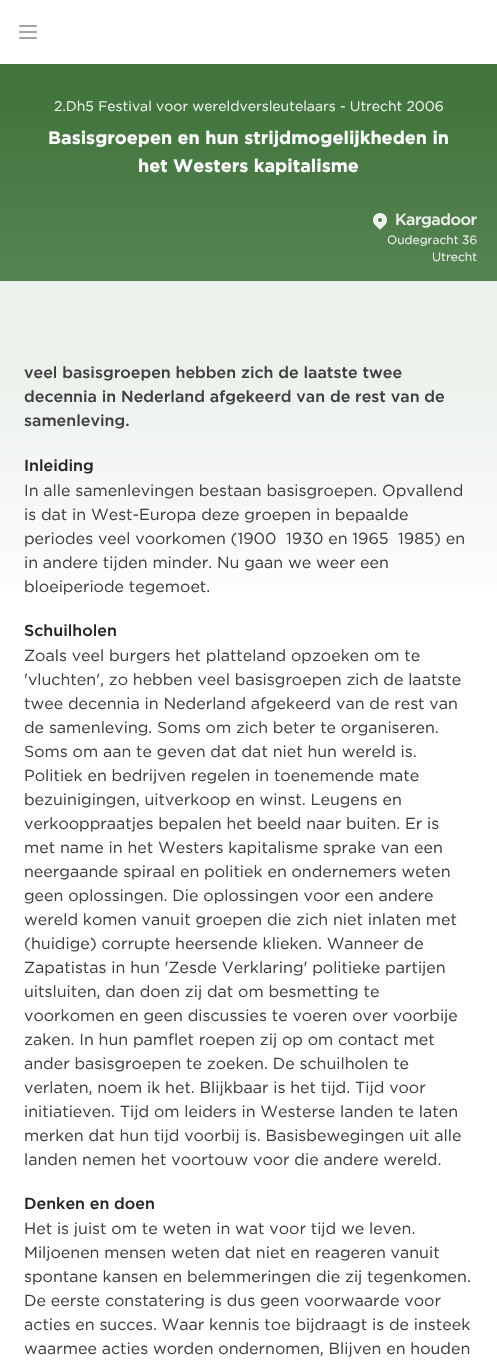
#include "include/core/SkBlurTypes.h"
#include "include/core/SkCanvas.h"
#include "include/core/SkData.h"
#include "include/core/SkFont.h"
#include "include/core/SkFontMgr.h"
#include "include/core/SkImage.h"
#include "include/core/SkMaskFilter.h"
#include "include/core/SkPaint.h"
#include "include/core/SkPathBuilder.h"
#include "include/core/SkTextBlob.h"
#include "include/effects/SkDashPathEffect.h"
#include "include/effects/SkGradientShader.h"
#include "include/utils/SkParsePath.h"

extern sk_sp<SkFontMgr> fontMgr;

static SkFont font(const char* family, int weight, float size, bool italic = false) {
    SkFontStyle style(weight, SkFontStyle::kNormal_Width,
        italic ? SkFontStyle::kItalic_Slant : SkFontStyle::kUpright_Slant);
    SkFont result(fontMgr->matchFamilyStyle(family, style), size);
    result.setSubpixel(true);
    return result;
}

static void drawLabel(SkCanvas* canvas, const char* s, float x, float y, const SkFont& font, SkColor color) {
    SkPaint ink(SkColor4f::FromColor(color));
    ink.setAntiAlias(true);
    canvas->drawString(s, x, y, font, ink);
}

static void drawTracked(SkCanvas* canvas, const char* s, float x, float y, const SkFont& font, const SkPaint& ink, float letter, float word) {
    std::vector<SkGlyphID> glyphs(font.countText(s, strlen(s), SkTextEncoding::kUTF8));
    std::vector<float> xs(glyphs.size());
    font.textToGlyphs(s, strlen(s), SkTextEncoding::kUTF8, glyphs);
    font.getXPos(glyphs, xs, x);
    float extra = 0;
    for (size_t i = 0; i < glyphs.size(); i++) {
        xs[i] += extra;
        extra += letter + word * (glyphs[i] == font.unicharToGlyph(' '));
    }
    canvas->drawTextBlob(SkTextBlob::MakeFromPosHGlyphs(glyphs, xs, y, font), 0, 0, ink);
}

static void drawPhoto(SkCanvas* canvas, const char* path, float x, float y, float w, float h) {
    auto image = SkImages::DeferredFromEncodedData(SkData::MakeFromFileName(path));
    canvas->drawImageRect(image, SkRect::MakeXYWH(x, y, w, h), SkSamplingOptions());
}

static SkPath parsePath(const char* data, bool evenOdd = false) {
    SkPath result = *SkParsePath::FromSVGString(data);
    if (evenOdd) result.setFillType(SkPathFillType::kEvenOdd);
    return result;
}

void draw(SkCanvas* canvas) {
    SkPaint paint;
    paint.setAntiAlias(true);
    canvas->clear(0xFFFFFFFF);
    paint.setStroke(true);
    paint.setStrokeWidth(2);
    paint.setStrokeCap(SkPaint::kRound_Cap);
    paint.setStrokeJoin(SkPaint::kRound_Join);
    paint.setColor(0xFFA3A3A3);
    canvas->drawPath(parsePath("M20 26H36M20 32H36M20 38H36"), paint);
    paint.setStroke(false);
    {
        const SkColor colors[] = {0xFF568353, 0xFF43763E};
        const float stops[] = {0, 0.8f};
        const SkPoint ends[] = {{249, 281}, {249, 64}};
        paint.setShader(SkGradientShader::MakeLinear(ends, colors, stops, 2, SkTileMode::kClamp));
        paint.setAlpha(255);
    }
    canvas->drawRect(SkRect::MakeXYWH(0, 64, 497, 217), paint);
    SkFont font1 = font("Gotham", 400, 14);
    drawLabel(canvas, "2.Dh5 Festival voor wereldversleutelaars - Utrecht 2006", 54, 111, font1, 0xFFECF1EC);
    SkFont font2 = font("Gotham", 700, 18);
    drawLabel(canvas, "Basisgroepen en hun strijdmogelijkheden in", 48, 144, font2, 0xFFFFFFFF);
    drawLabel(canvas, "het Westers kapitalisme", 138, 172, font2, 0xFFFFFFFF);
    drawPhoto(canvas, "assets/img1.png", 373, 213, 14, 17);
    SkFont font3 = font("Gotham", 500, 16);
    paint.setShader(nullptr);
    paint.setColor(0xFFECF1EC);
    drawTracked(canvas, "Kargadoor", 395, 225, font3, paint, -0.5f, 0);
    SkFont font4 = font("Gotham", 400, 12);
    drawLabel(canvas, "Oudegracht 36", 387, 244, font4, 0xFFECF1EC);
    drawLabel(canvas, "Utrecht", 432, 261, font4, 0xFFECF1EC);
    {
        const SkColor colors[] = {0xFFFFFFFF, 0xFFECF1EC};
        const float stops[] = {0.8f, 0.95f};
        const SkPoint ends[] = {{249, 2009}, {249, 281}};
        paint.setShader(SkGradientShader::MakeLinear(ends, colors, stops, 2, SkTileMode::kClamp));
        paint.setAlpha(255);
    }
    canvas->drawRect(SkRect::MakeXYWH(0, 281, 497, 311), paint);
    drawLabel(canvas, "veel basisgroepen hebben zich de laatste twee", 24, 378, font3, 0xFF404040);
    drawLabel(canvas, "decennia in Nederland afgekeerd van de rest van de", 24, 402, font3, 0xFF404040);
    drawLabel(canvas, "samenleving.", 24, 426, font3, 0xFF404040);
    drawLabel(canvas, "Inleiding", 24, 471, font3, 0xFF262626);
    SkFont font5 = font("Gotham", 400, 16);
    drawLabel(canvas, "In alle samenlevingen bestaan basisgroepen. Opvallend", 24, 496, font5, 0xFF404040);
    drawLabel(canvas, "is dat in West-Europa deze groepen in bepaalde", 24, 520, font5, 0xFF404040);
    drawLabel(canvas, "periodes veel voorkomen (1900  1930 en 1965  1985) en", 24, 544, font5, 0xFF404040);
    drawLabel(canvas, "in andere tijden minder. Nu gaan we weer een", 24, 568, font5, 0xFF404040);
    drawLabel(canvas, "bloeiperiode tegemoet.", 24, 592, font5, 0xFF404040);
    drawLabel(canvas, "Schuilholen", 24, 636, font3, 0xFF262626);
    drawLabel(canvas, "Zoals veel burgers het platteland opzoeken om te", 24, 661, font5, 0xFF404040);
    drawLabel(canvas, "'vluchten', zo hebben veel basisgroepen zich de laatste", 24, 685, font5, 0xFF404040);
    drawLabel(canvas, "twee decennia in Nederland afgekeerd van de rest van", 24, 709, font5, 0xFF404040);
    drawLabel(canvas, "de samenleving. Soms om zich beter te organiseren.", 24, 733, font5, 0xFF404040);
    drawLabel(canvas, "Soms om aan te geven dat dat niet hun wereld is.", 24, 757, font5, 0xFF404040);
    drawLabel(canvas, "Politiek en bedrijven regelen in toenemende mate", 24, 781, font5, 0xFF404040);
    drawLabel(canvas, "bezuinigingen, uitverkoop en winst. Leugens en", 24, 805, font5, 0xFF404040);
    drawLabel(canvas, "verkooppraatjes bepalen het beeld naar buiten. Er is", 24, 829, font5, 0xFF404040);
    drawLabel(canvas, "met name in het Westers kapitalisme sprake van een", 24, 853, font5, 0xFF404040);
    drawLabel(canvas, "neergaande spiraal en politiek en ondernemers weten", 24, 877, font5, 0xFF404040);
    drawLabel(canvas, "geen oplossingen. Die oplossingen voor een andere", 24, 901, font5, 0xFF404040);
    drawLabel(canvas, "wereld komen vanuit groepen die zich niet inlaten met", 24, 925, font5, 0xFF404040);
    drawLabel(canvas, "(huidige) corrupte heersende klieken. Wanneer de", 24, 949, font5, 0xFF404040);
    drawLabel(canvas, "Zapatistas in hun 'Zesde Verklaring' politieke partijen", 24, 973, font5, 0xFF404040);
    drawLabel(canvas, "uitsluiten, dan doen zij dat om besmetting te", 24, 997, font5, 0xFF404040);
    drawLabel(canvas, "voorkomen en geen discussies te voeren over voorbije", 24, 1021, font5, 0xFF404040);
    drawLabel(canvas, "zaken. In hun pamflet roepen zij op om contact met", 24, 1045, font5, 0xFF404040);
    drawLabel(canvas, "ander basisgroepen te zoeken. De schuilholen te", 24, 1069, font5, 0xFF404040);
    drawLabel(canvas, "verlaten, noem ik het. Blijkbaar is het tijd. Tijd voor", 24, 1093, font5, 0xFF404040);
    drawLabel(canvas, "initiatieven. Tijd om leiders in Westerse landen te laten", 24, 1117, font5, 0xFF404040);
    drawLabel(canvas, "merken dat hun tijd voorbij is. Basisbewegingen uit alle", 24, 1141, font5, 0xFF404040);
    drawLabel(canvas, "landen nemen het voortouw voor die andere wereld.", 24, 1165, font5, 0xFF404040);
    drawLabel(canvas, "Denken en doen", 24, 1209, font3, 0xFF262626);
    drawLabel(canvas, "Het is juist om te weten in wat voor tijd we leven.", 24, 1234, font5, 0xFF404040);
    drawLabel(canvas, "Miljoenen mensen weten dat niet en reageren vanuit", 24, 1258, font5, 0xFF404040);
    drawLabel(canvas, "spontane kansen en belemmeringen die zij tegenkomen.", 24, 1282, font5, 0xFF404040);
    drawLabel(canvas, "De eerste constatering is dus geen voorwaarde voor", 24, 1306, font5, 0xFF404040);
    drawLabel(canvas, "acties en succes. Waar kennis toe bijdraagt is de insteek", 24, 1330, font5, 0xFF404040);
    drawLabel(canvas, "waarmee acties worden ondernomen, Blijven en houden", 24, 1354, font5, 0xFF404040);
}
